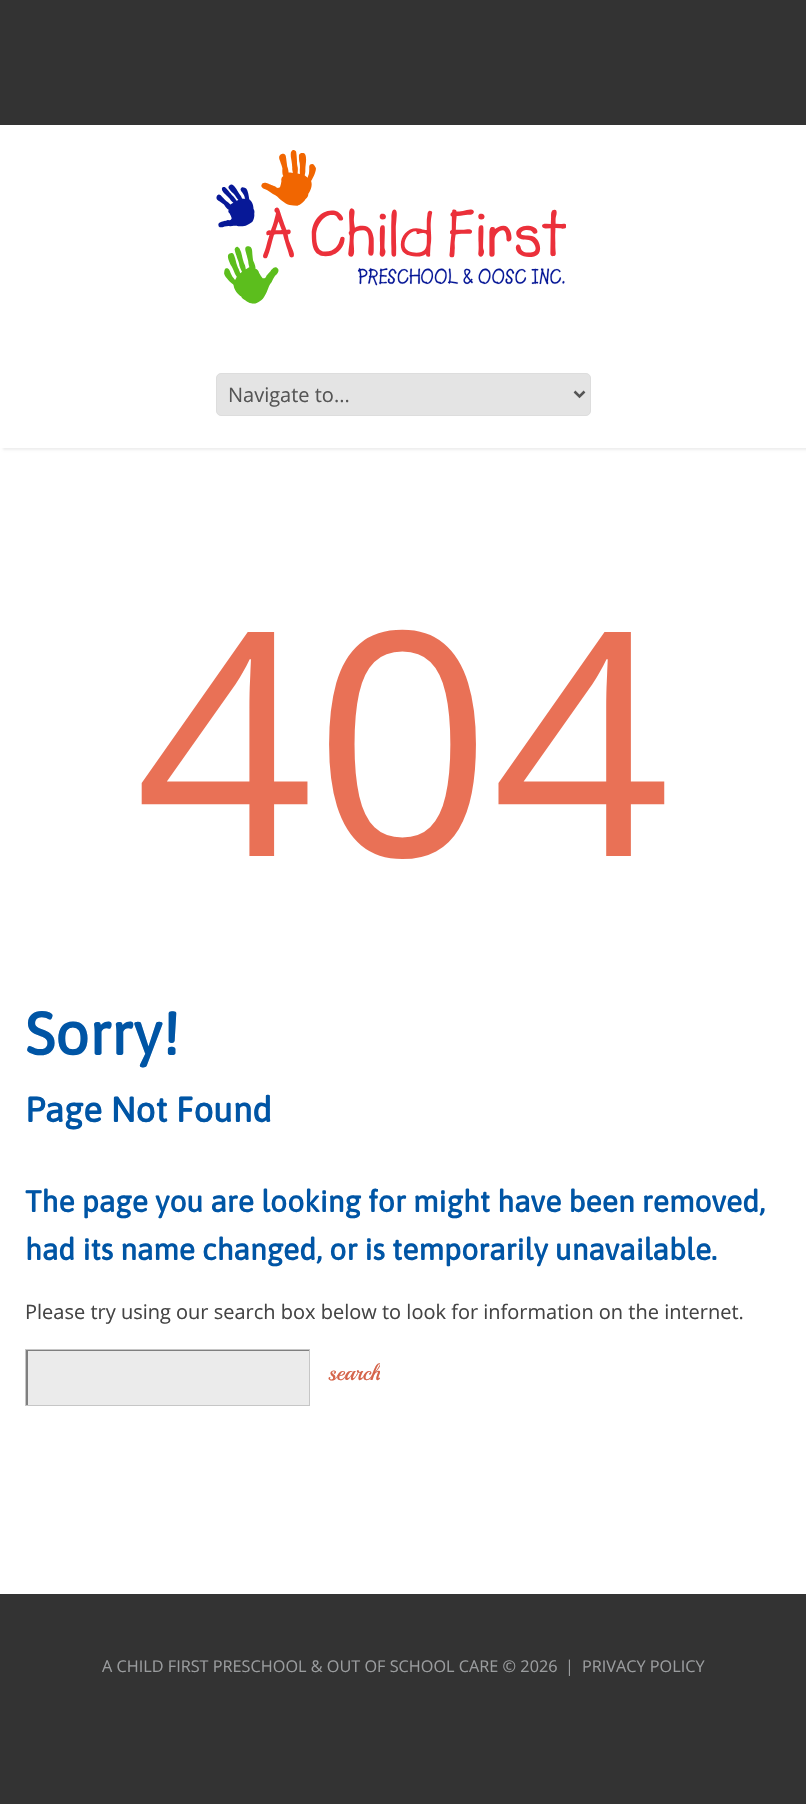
#include "include/core/SkBlurTypes.h"
#include "include/core/SkCanvas.h"
#include "include/core/SkData.h"
#include "include/core/SkFont.h"
#include "include/core/SkFontMgr.h"
#include "include/core/SkImage.h"
#include "include/core/SkMaskFilter.h"
#include "include/core/SkPaint.h"
#include "include/core/SkPathBuilder.h"
#include "include/core/SkTextBlob.h"
#include "include/effects/SkDashPathEffect.h"
#include "include/effects/SkGradientShader.h"
#include "include/utils/SkParsePath.h"

extern sk_sp<SkFontMgr> fontMgr;

static SkFont font(const char* family, int weight, float size, bool italic = false) {
    SkFontStyle style(weight, SkFontStyle::kNormal_Width,
        italic ? SkFontStyle::kItalic_Slant : SkFontStyle::kUpright_Slant);
    SkFont result(fontMgr->matchFamilyStyle(family, style), size);
    result.setSubpixel(true);
    return result;
}

static void drawLabel(SkCanvas* canvas, const char* s, float x, float y, const SkFont& font, SkColor color) {
    SkPaint ink(SkColor4f::FromColor(color));
    ink.setAntiAlias(true);
    canvas->drawString(s, x, y, font, ink);
}

static void fillRect(SkCanvas* canvas, float x, float y, float w, float h, SkColor color) {
    SkPaint ink(SkColor4f::FromColor(color));
    ink.setAntiAlias(true);
    canvas->drawRect(SkRect::MakeXYWH(x, y, w, h), ink);
}

static void drawPhoto(SkCanvas* canvas, const char* path, float x, float y, float w, float h) {
    auto image = SkImages::DeferredFromEncodedData(SkData::MakeFromFileName(path));
    canvas->drawImageRect(image, SkRect::MakeXYWH(x, y, w, h), SkSamplingOptions());
}

static SkPath parsePath(const char* data, bool evenOdd = false) {
    SkPath result = *SkParsePath::FromSVGString(data);
    if (evenOdd) result.setFillType(SkPathFillType::kEvenOdd);
    return result;
}

void draw(SkCanvas* canvas) {
    SkPaint paint;
    paint.setAntiAlias(true);
    canvas->clear(0xFF333333);
    fillRect(canvas, 0, 448, 806, 1146, 0xFFFFFFFF);
    paint.setColor(0xFFEEEEEE);
    paint.setMaskFilter(SkMaskFilter::MakeBlur(kNormal_SkBlurStyle, 1));
    canvas->drawRect(SkRect::MakeXYWH(3, 128, 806, 322), paint);
    paint.setMaskFilter(nullptr);
    fillRect(canvas, 0, 125, 806, 323, 0xFFFFFFFF);
    drawPhoto(canvas, "assets/img1.png", 216, 150, 350, 154);
    paint.setColor(0xFFE4E4E4);
    canvas->drawRoundRect(SkRect::MakeXYWH(216.5f, 373.5f, 374, 42), 4.5f, 4.5f, paint);
    paint.setStroke(true);
    paint.setStrokeWidth(1);
    paint.setColor(0xFFDDDDDD);
    canvas->drawRoundRect(SkRect::MakeXYWH(216.5f, 373.5f, 374, 42), 4.5f, 4.5f, paint);
    paint.setStrokeWidth(2.5f);
    paint.setColor(0xFF555555);
    canvas->drawPath(parsePath("M574.5 391.5L579.5 396.5L584.5 391.5"), paint);
    SkFont font1 = font("Open Sans", 400, 20);
    drawLabel(canvas, "Navigate to...", 228, 402, font1, 0xFF555555);
    SkFont font2 = font("Open Sans", 400, 312);
    drawLabel(canvas, "404", 135, 856, font2, 0xFFE97156);
    SkFont font3 = font("Asap", 700, 60);
    drawLabel(canvas, "Sorry!", 25, 1055, font3, 0xFF0055A5);
    SkFont font4 = font("Asap", 700, 35);
    drawLabel(canvas, "Page Not Found", 25, 1122, font4, 0xFF0055A5);
    SkFont font5 = font("Asap", 700, 30);
    drawLabel(canvas, "The page you are looking for might have been removed,", 25, 1212, font5, 0xFF0055A5);
    drawLabel(canvas, "had its name changed, or is temporarily unavailable.", 25, 1260, font5, 0xFF0055A5);
    drawLabel(canvas, "Please try using our search box below to look for information on the internet.", 25, 1319, font1, 0xFF444444);
    fillRect(canvas, 28, 1351, 281, 54, 0xFFEBEBEB);
    canvas->save();
    canvas->clipRect(SkRect::MakeXYWH(26, 1350, 283, 55));
    paint.setStroke(false);
    paint.setColor(0xFF7F7F7F);
    canvas->drawPath(parsePath("M-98 1226H432V1529H-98ZM28 1351H310V1406H28Z", true), paint);
    canvas->restore();
    paint.setStroke(true);
    paint.setStrokeWidth(1);
    paint.setColor(0xFFC6C6C6);
    canvas->drawRect(SkRect::MakeXYWH(25.5f, 1349.5f, 284, 56), paint);
    canvas->save();
    canvas->clipRect(SkRect::MakeXYWH(328, 1351, 52, 45));
    SkFont font6 = font("Playball", 400, 22.5f);
    drawLabel(canvas, "search", 328, 1380, font6, 0xFFD5644A);
    canvas->restore();
    SkFont font7 = font("Open Sans", 400, 16.25f);
    drawLabel(canvas, "A CHILD FIRST PRESCHOOL & OUT OF SCHOOL CARE © 2026", 102, 1672, font7, 0xFF9A9C9E);
    drawLabel(canvas, "|", 565, 1672, font7, 0xFF9A9C9E);
    drawLabel(canvas, "PRIVACY POLICY", 582, 1672, font7, 0xFF9A9C9E);
}
